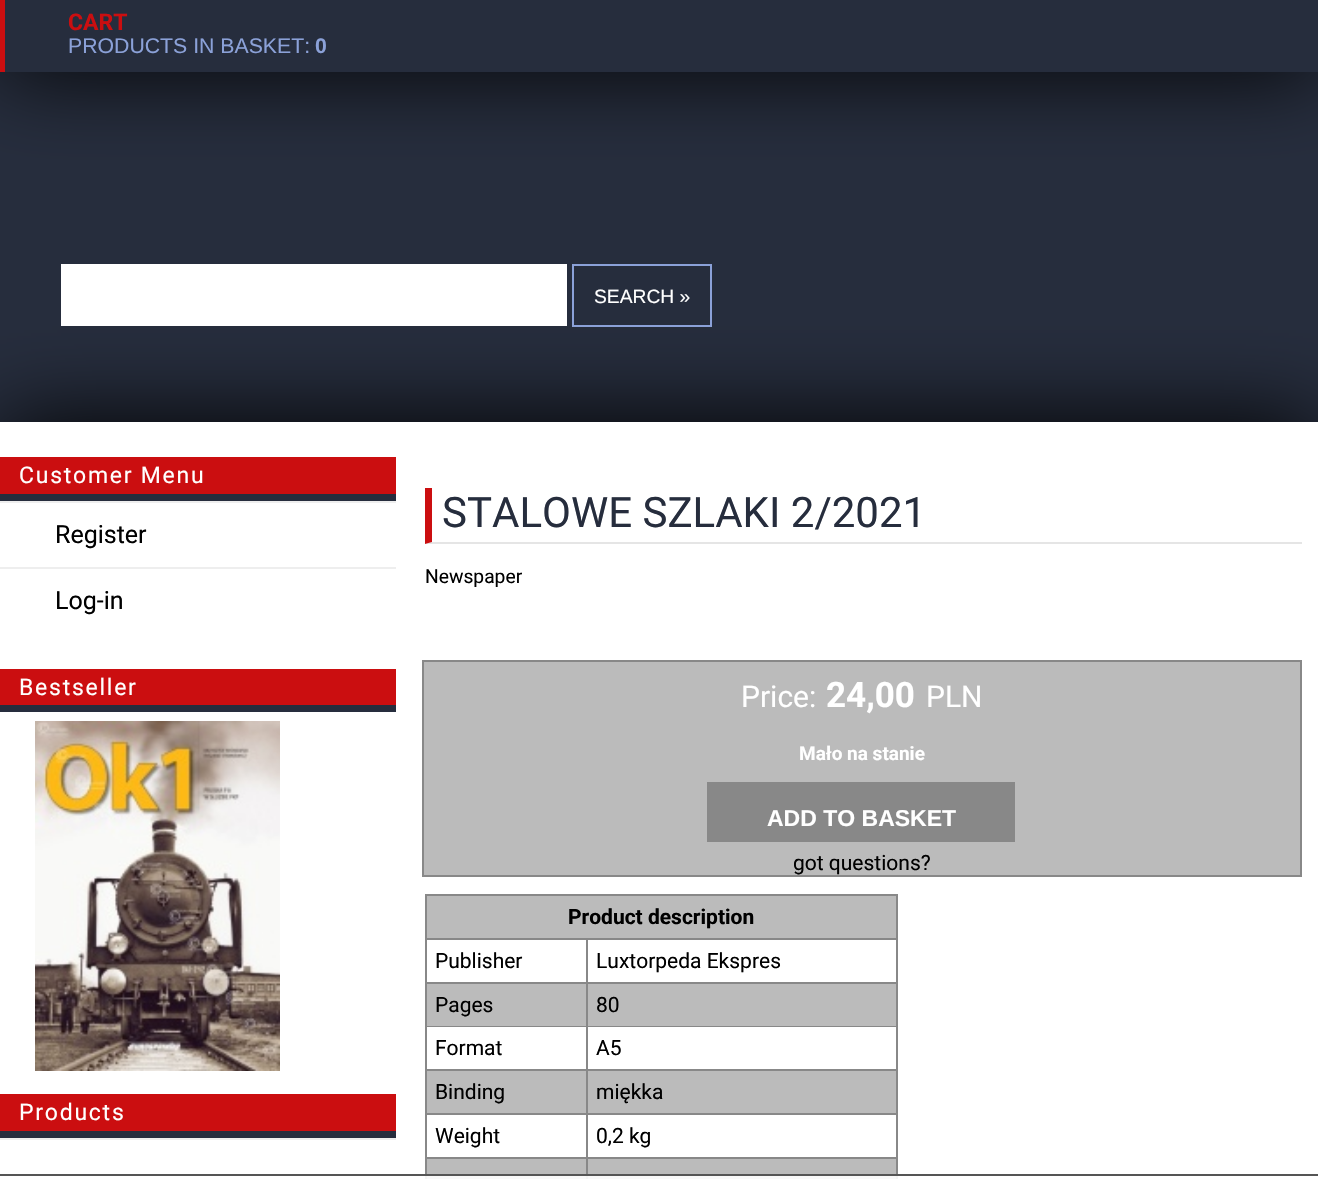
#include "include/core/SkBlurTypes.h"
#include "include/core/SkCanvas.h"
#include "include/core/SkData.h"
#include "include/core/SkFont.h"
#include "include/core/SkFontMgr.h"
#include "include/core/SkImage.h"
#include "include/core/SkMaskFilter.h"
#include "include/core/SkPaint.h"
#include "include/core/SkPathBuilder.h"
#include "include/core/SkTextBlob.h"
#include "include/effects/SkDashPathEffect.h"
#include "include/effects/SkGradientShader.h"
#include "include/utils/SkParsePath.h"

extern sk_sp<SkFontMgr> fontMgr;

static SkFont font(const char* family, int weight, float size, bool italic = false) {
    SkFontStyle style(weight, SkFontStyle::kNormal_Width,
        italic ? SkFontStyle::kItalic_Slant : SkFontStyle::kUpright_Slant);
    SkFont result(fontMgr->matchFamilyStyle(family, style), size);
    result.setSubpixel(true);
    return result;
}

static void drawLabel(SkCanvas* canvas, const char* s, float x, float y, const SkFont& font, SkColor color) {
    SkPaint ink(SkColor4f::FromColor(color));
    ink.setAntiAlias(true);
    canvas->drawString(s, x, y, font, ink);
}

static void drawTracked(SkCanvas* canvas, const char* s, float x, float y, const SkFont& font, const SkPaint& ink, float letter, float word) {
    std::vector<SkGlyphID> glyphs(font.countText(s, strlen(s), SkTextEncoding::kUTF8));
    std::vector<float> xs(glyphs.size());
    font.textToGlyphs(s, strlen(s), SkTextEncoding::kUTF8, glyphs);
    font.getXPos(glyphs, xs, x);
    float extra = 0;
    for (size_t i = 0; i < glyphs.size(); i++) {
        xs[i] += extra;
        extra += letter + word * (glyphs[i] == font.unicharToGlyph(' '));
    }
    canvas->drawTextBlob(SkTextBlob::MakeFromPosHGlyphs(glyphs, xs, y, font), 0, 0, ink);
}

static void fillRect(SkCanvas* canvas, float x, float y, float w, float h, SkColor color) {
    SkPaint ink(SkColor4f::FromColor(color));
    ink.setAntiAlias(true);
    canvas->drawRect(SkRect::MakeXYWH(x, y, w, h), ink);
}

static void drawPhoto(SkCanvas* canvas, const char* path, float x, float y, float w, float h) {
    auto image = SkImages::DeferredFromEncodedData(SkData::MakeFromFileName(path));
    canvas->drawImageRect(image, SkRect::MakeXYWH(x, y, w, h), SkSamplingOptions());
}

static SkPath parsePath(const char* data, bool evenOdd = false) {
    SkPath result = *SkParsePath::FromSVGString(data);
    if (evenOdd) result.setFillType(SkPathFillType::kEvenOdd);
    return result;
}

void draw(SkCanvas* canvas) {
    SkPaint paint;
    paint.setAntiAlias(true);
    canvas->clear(0xFF262D3D);
    paint.setColor(0xFF000000);
    paint.setMaskFilter(SkMaskFilter::MakeBlur(kNormal_SkBlurStyle, 44));
    canvas->drawRect(SkRect::MakeXYWH(0, 0, 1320, 72), paint);
    paint.setMaskFilter(nullptr);
    fillRect(canvas, 5, 0, 1313, 72, 0xFF262D3D);
    fillRect(canvas, 0, 0, 5, 72, 0xFFCB0E10);
    SkFont font1 = font("Roboto", 700, 23);
    drawLabel(canvas, "CART", 68, 30, font1, 0xFFCB0E10);
    SkFont font2 = font("Liberation Sans", 400, 21.25f);
    drawLabel(canvas, "PRODUCTS IN BASKET:", 68, 53, font2, 0xFF8BA1D8);
    SkFont font3 = font("Liberation Sans", 700, 21.25f);
    drawLabel(canvas, "0", 315, 53, font3, 0xFF8BA1D8);
    paint.setMaskFilter(SkMaskFilter::MakeBlur(kNormal_SkBlurStyle, 44));
    canvas->drawRect(SkRect::MakeXYWH(0, 422, 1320, 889), paint);
    paint.setMaskFilter(nullptr);
    fillRect(canvas, 61, 264, 506, 62, 0xFFFFFFFF);
    paint.setStroke(true);
    paint.setStrokeWidth(2);
    paint.setColor(0xFF8BA1D8);
    canvas->drawRect(SkRect::MakeXYWH(573, 265, 138, 61), paint);
    SkFont font4 = font("Liberation Sans", 400, 19.25f);
    drawLabel(canvas, "SEARCH »", 594, 303, font4, 0xFFFFFFFF);
    fillRect(canvas, 0, 422, 1318, 757, 0xFFFFFFFF);
    fillRect(canvas, 0, 457, 396, 37, 0xFFCB0E10);
    fillRect(canvas, 0, 494, 396, 7, 0xFF262D3D);
    SkFont font5 = font("Roboto", 400, 23);
    paint.setStroke(false);
    paint.setColor(0xFFFFFFFF);
    drawTracked(canvas, "Customer Menu", 19, 483, font5, paint, 1.75f, 0);
    fillRect(canvas, 0, 501, 396, 2, 0xFFEEEEEE);
    SkFont font6 = font("Roboto", 400, 25);
    drawLabel(canvas, "Register", 55, 543, font6, 0xFF000000);
    fillRect(canvas, 0, 567, 396, 2, 0xFFEEEEEE);
    drawLabel(canvas, "Log-in", 55, 609, font6, 0xFF000000);
    fillRect(canvas, 0, 669, 396, 36, 0xFFCB0E10);
    fillRect(canvas, 0, 705, 396, 7, 0xFF262D3D);
    drawTracked(canvas, "Bestseller", 19, 695, font5, paint, 1.75f, 0);
    drawPhoto(canvas, "assets/img1.png", 35, 721, 245, 350);
    fillRect(canvas, 0, 1094, 396, 37, 0xFFCB0E10);
    fillRect(canvas, 0, 1131, 396, 7, 0xFF262D3D);
    drawTracked(canvas, "Products", 19, 1120, font5, paint, 1.75f, 0);
    fillRect(canvas, 0, 1138, 396, 2, 0xFFEEEEEE);
    paint.setColor(0xFFE5E5E5);
    canvas->drawPath(parsePath("M1302 544H425L432 542H1302Z"), paint);
    paint.setColor(0xFFCB0E10);
    canvas->drawPath(parsePath("M425 544V488H432V542Z"), paint);
    SkFont font7 = font("Roboto", 400, 42);
    drawLabel(canvas, "STALOWE SZLAKI 2/2021", 442, 527, font7, 0xFF262D3D);
    SkFont font8 = font("Roboto", 400, 19.25f);
    drawLabel(canvas, "Newspaper", 425, 583, font8, 0xFF000000);
    paint.setColor(0xFFBBBBBB);
    canvas->drawRect(SkRect::MakeXYWH(423, 661, 878, 215), paint);
    paint.setStroke(true);
    paint.setColor(0xFF888888);
    canvas->drawRect(SkRect::MakeXYWH(423, 661, 878, 215), paint);
    SkFont font9 = font("Roboto", 400, 30);
    drawLabel(canvas, "Price:", 741, 707, font9, 0xFFFFFFFF);
    SkFont font10 = font("Roboto", 700, 35);
    drawLabel(canvas, "24,00", 826, 707, font10, 0xFFFFFFFF);
    drawLabel(canvas, "PLN", 926, 707, font9, 0xFFFFFFFF);
    SkFont font11 = font("Roboto", 700, 19);
    drawLabel(canvas, "Mało na stanie", 799, 760, font11, 0xFFFFFFFF);
    fillRect(canvas, 707, 782, 308, 60, 0xFF888888);
    SkFont font12 = font("Liberation Sans", 700, 23);
    drawLabel(canvas, "ADD TO BASKET", 767, 826, font12, 0xFFFFFFFF);
    SkFont font13 = font("Roboto", 400, 21);
    drawLabel(canvas, "got questions?", 793, 870, font13, 0xFF000000);
    fillRect(canvas, 425, 894, 473, 285, 0xFF888888);
    fillRect(canvas, 427, 896, 469, 42, 0xFFBBBBBB);
    SkFont font14 = font("Roboto", 700, 21);
    drawLabel(canvas, "Product description", 568, 924, font14, 0xFF000000);
    fillRect(canvas, 427, 940, 159, 42, 0xFFFFFFFF);
    drawLabel(canvas, "Publisher", 435, 968, font13, 0xFF000000);
    fillRect(canvas, 588, 940, 308, 42, 0xFFFFFFFF);
    drawLabel(canvas, "Luxtorpeda Ekspres", 596, 968, font13, 0xFF000000);
    fillRect(canvas, 427, 984, 159, 42, 0xFFBBBBBB);
    drawLabel(canvas, "Pages", 435, 1012, font13, 0xFF000000);
    fillRect(canvas, 588, 984, 308, 42, 0xFFBBBBBB);
    drawLabel(canvas, "80", 596, 1012, font13, 0xFF000000);
    fillRect(canvas, 427, 1027, 159, 42, 0xFFFFFFFF);
    drawLabel(canvas, "Format", 435, 1055, font13, 0xFF000000);
    fillRect(canvas, 588, 1027, 308, 42, 0xFFFFFFFF);
    drawLabel(canvas, "A5", 596, 1055, font13, 0xFF000000);
    fillRect(canvas, 427, 1071, 159, 42, 0xFFBBBBBB);
    drawLabel(canvas, "Binding", 435, 1099, font13, 0xFF000000);
    fillRect(canvas, 588, 1071, 308, 42, 0xFFBBBBBB);
    drawLabel(canvas, "miękka", 596, 1099, font13, 0xFF000000);
    fillRect(canvas, 427, 1115, 159, 42, 0xFFFFFFFF);
    drawLabel(canvas, "Weight", 435, 1143, font13, 0xFF000000);
    fillRect(canvas, 588, 1115, 308, 42, 0xFFFFFFFF);
    drawLabel(canvas, "0,2 kg", 596, 1143, font13, 0xFF000000);
    fillRect(canvas, 427, 1159, 159, 20, 0xFFBBBBBB);
    fillRect(canvas, 588, 1159, 308, 20, 0xFFBBBBBB);
    fillRect(canvas, 425, 1176, 473, 3, 0xE6FFFFFF);
    fillRect(canvas, 0, 1174, 1318, 2, 0xFF555555);
}
